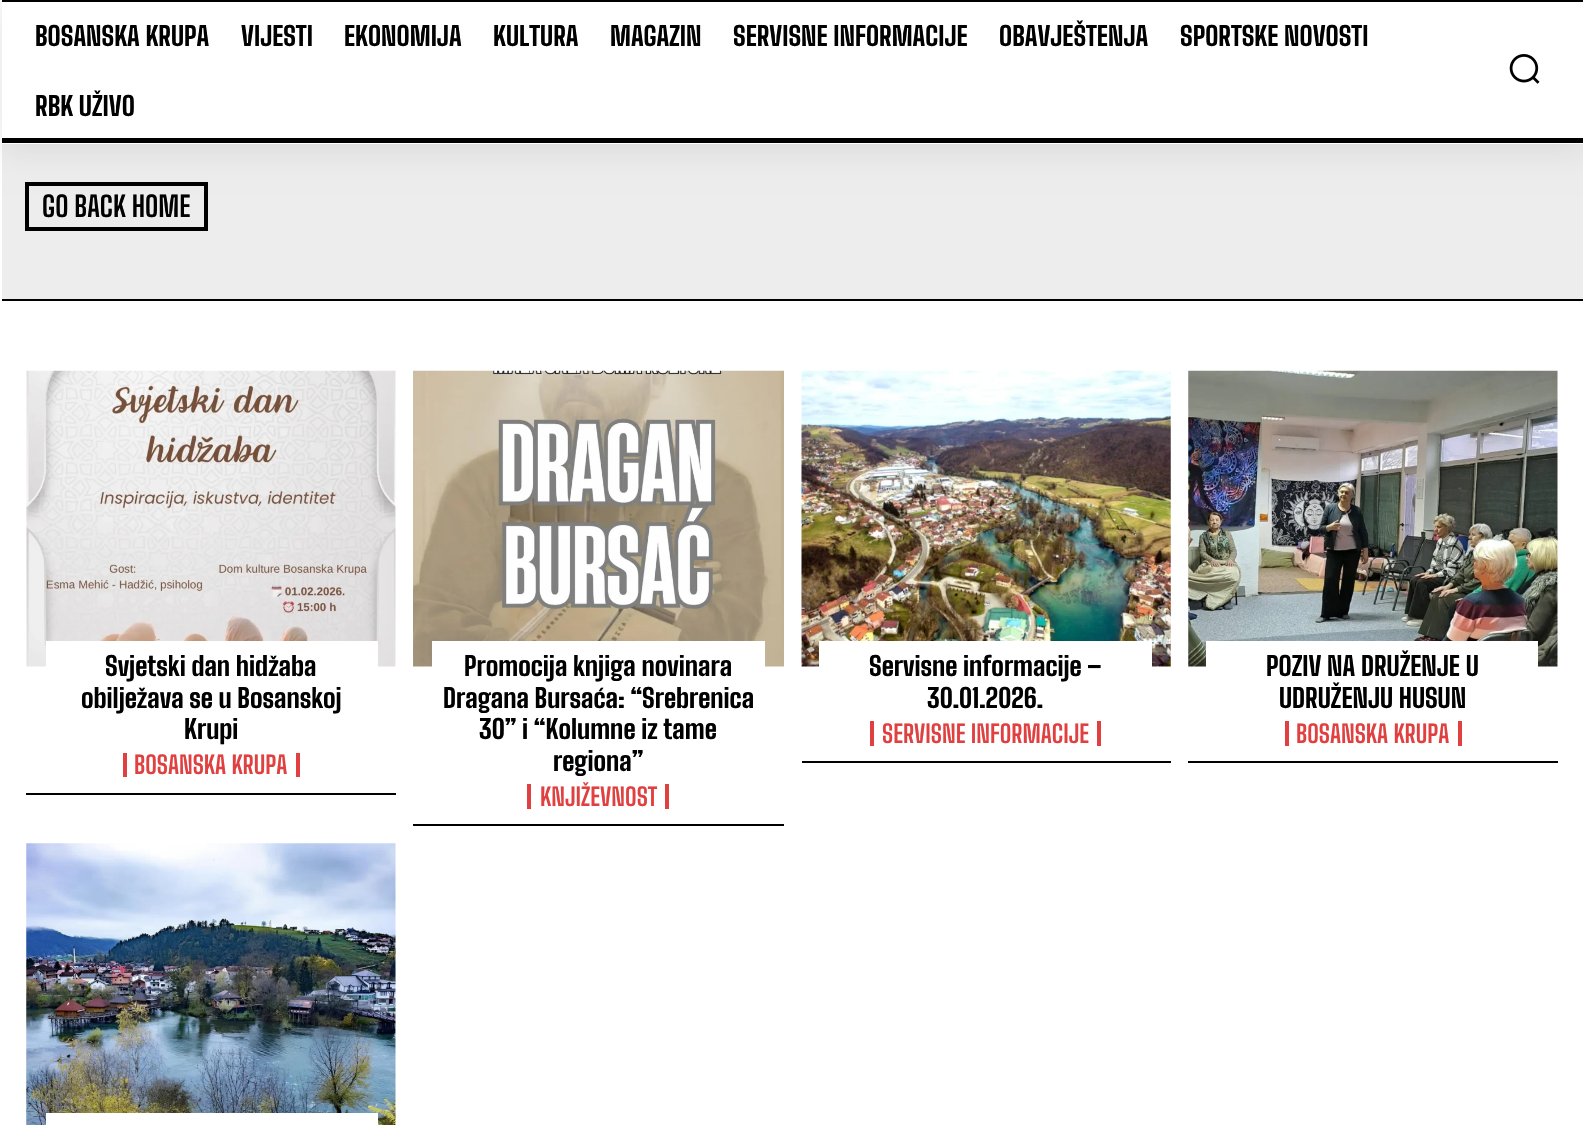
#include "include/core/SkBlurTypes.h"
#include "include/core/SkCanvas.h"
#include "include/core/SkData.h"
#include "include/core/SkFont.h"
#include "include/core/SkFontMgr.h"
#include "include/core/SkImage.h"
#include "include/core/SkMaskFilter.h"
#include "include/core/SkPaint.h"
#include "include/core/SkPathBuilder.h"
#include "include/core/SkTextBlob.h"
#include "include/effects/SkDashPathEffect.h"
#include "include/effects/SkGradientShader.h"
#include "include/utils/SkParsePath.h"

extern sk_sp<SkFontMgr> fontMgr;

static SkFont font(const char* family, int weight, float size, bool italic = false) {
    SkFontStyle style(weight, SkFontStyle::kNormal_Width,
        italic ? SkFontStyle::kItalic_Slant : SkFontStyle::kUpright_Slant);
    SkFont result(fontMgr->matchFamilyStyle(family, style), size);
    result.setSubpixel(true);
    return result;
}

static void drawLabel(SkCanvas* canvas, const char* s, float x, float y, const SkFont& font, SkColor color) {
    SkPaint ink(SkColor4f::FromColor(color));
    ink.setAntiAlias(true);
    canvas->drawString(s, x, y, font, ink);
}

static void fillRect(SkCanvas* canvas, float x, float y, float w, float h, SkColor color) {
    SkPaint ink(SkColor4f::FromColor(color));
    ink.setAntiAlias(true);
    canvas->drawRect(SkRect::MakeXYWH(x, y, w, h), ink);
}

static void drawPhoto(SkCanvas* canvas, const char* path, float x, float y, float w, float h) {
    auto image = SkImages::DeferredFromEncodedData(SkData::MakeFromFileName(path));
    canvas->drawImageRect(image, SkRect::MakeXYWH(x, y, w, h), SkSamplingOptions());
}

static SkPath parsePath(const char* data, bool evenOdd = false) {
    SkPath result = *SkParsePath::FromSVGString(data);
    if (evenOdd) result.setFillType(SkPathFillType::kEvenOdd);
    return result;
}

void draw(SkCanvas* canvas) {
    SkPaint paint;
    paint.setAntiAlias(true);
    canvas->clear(0xFFFFFFFF);
    fillRect(canvas, 2, 0, 1581, 2, 0xFF000000);
    fillRect(canvas, 2, 138, 1581, 5, 0xFF000000);
    fillRect(canvas, 2, 144, 1581, 155, 0xFFEDEDED);
    paint.setStroke(true);
    paint.setStrokeWidth(4);
    paint.setColor(0xFF000000);
    canvas->drawRect(SkRect::MakeXYWH(27, 184, 179, 45), paint);
    canvas->save();
    canvas->clipPath(parsePath("M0 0H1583V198H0ZM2 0H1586V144H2Z", true), true);
    paint.setStroke(false);
    paint.setColor(0x1F000000);
    paint.setMaskFilter(SkMaskFilter::MakeBlur(kNormal_SkBlurStyle, 17.5f));
    canvas->drawRect(SkRect::MakeXYWH(2, 0, 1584, 144), paint);
    paint.setMaskFilter(nullptr);
    canvas->restore();
    SkFont font1 = font("Big Shoulders Text", 800, 26.25f);
    drawLabel(canvas, "BOSANSKA KRUPA", 35, 46, font1, 0xFF000000);
    drawLabel(canvas, "VIJESTI", 241, 46, font1, 0xFF000000);
    drawLabel(canvas, "EKONOMIJA", 344, 46, font1, 0xFF000000);
    drawLabel(canvas, "KULTURA", 493, 46, font1, 0xFF000000);
    drawLabel(canvas, "MAGAZIN", 610, 46, font1, 0xFF000000);
    drawLabel(canvas, "SERVISNE INFORMACIJE", 733, 46, font1, 0xFF000000);
    drawLabel(canvas, "OBAVJEŠTENJA", 999, 46, font1, 0xFF000000);
    drawLabel(canvas, "SPORTSKE NOVOSTI", 1180, 46, font1, 0xFF000000);
    drawLabel(canvas, "RBK UŽIVO", 35, 116, font1, 0xFF000000);
    drawPhoto(canvas, "assets/img1.png", 1509, 54, 31, 30);
    fillRect(canvas, 2, 299, 1581, 2, 0xFF000000);
    SkFont font2 = font("Big Shoulders Text", 700, 28);
    drawLabel(canvas, "GO BACK HOME", 42, 217, font2, 0xFF000000);
    drawPhoto(canvas, "assets/img2.png", 26, 370, 370, 297);
    fillRect(canvas, 46, 641, 332, 26, 0xFFFFFFFF);
    drawLabel(canvas, "Svjetski dan hidžaba", 105, 676, font1, 0xFF000000);
    drawLabel(canvas, "obilježava se u Bosanskoj", 81, 708, font1, 0xFF000000);
    drawLabel(canvas, "Krupi", 184, 739, font1, 0xFF000000);
    fillRect(canvas, 296, 753, 4, 24, 0xFFE04040);
    fillRect(canvas, 123, 753, 4, 24, 0xFFE04040);
    SkFont font3 = font("Big Shoulders Text", 700, 24.5f);
    drawLabel(canvas, "BOSANSKA KRUPA", 134, 774, font3, 0xFFE04040);
    fillRect(canvas, 26, 793, 370, 2, 0xFF000000);
    drawPhoto(canvas, "assets/img3.png", 413, 370, 371, 297);
    fillRect(canvas, 432, 641, 333, 26, 0xFFFFFFFF);
    drawLabel(canvas, "Promocija knjiga novinara", 464, 676, font1, 0xFF000000);
    drawLabel(canvas, "Dragana Bursaća: “Srebrenica", 443, 708, font1, 0xFF000000);
    drawLabel(canvas, "30” i “Kolumne iz tame", 479, 739, font1, 0xFF000000);
    drawLabel(canvas, "regiona”", 553, 771, font1, 0xFF000000);
    fillRect(canvas, 665, 784, 4, 25, 0xFFE04040);
    fillRect(canvas, 527, 784, 4, 25, 0xFFE04040);
    drawLabel(canvas, "KNJIŽEVNOST", 540, 806, font3, 0xFFE04040);
    fillRect(canvas, 413, 824, 371, 2, 0xFF000000);
    drawPhoto(canvas, "assets/img4.png", 801, 370, 370, 297);
    fillRect(canvas, 819, 641, 333, 26, 0xFFFFFFFF);
    drawLabel(canvas, "Servisne informacije –", 869, 676, font1, 0xFF000000);
    drawLabel(canvas, "30.01.2026.", 927, 708, font1, 0xFF000000);
    fillRect(canvas, 1097, 721, 4, 25, 0xFFE04040);
    fillRect(canvas, 870, 721, 4, 25, 0xFFE04040);
    drawLabel(canvas, "SERVISNE INFORMACIJE", 882, 743, font3, 0xFFE04040);
    fillRect(canvas, 802, 761, 369, 2, 0xFF000000);
    drawPhoto(canvas, "assets/img5.png", 1188, 370, 370, 297);
    fillRect(canvas, 1206, 641, 332, 26, 0xFFFFFFFF);
    drawLabel(canvas, "POZIV NA DRUŽENJE U", 1266, 676, font1, 0xFF000000);
    drawLabel(canvas, "UDRUŽENJU HUSUN", 1279, 708, font1, 0xFF000000);
    fillRect(canvas, 1458, 721, 4, 25, 0xFFE04040);
    fillRect(canvas, 1285, 721, 4, 25, 0xFFE04040);
    drawLabel(canvas, "BOSANSKA KRUPA", 1296, 743, font3, 0xFFE04040);
    fillRect(canvas, 1188, 761, 370, 2, 0xFF000000);
    drawPhoto(canvas, "assets/img6.png", 26, 843, 370, 282);
    fillRect(canvas, 46, 1113, 332, 12, 0xFFFFFFFF);
}
